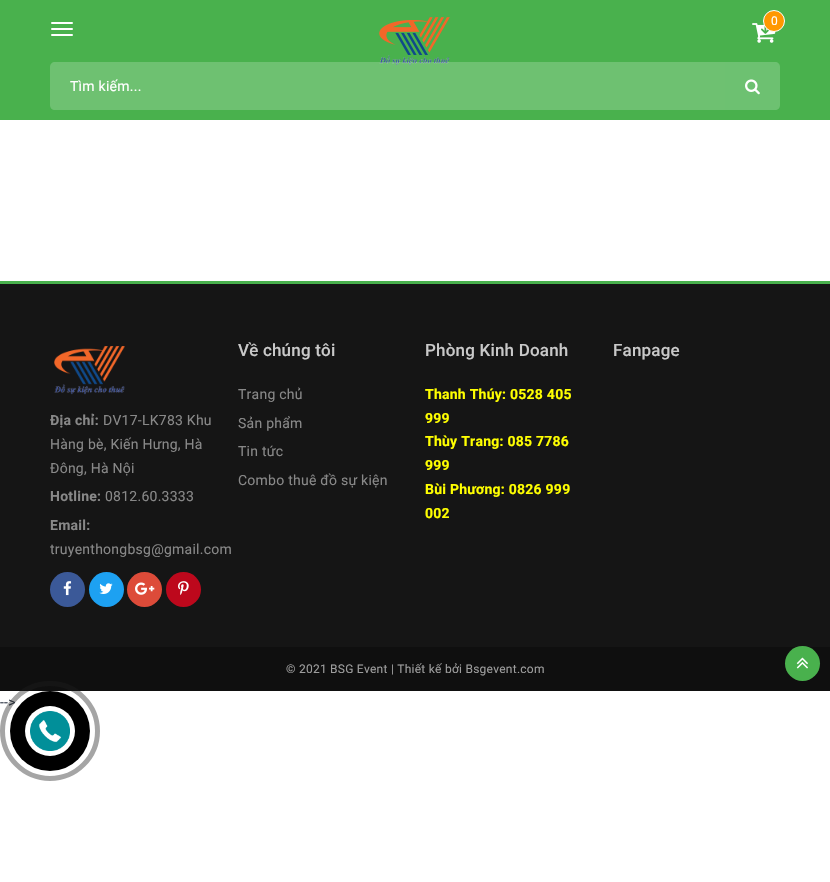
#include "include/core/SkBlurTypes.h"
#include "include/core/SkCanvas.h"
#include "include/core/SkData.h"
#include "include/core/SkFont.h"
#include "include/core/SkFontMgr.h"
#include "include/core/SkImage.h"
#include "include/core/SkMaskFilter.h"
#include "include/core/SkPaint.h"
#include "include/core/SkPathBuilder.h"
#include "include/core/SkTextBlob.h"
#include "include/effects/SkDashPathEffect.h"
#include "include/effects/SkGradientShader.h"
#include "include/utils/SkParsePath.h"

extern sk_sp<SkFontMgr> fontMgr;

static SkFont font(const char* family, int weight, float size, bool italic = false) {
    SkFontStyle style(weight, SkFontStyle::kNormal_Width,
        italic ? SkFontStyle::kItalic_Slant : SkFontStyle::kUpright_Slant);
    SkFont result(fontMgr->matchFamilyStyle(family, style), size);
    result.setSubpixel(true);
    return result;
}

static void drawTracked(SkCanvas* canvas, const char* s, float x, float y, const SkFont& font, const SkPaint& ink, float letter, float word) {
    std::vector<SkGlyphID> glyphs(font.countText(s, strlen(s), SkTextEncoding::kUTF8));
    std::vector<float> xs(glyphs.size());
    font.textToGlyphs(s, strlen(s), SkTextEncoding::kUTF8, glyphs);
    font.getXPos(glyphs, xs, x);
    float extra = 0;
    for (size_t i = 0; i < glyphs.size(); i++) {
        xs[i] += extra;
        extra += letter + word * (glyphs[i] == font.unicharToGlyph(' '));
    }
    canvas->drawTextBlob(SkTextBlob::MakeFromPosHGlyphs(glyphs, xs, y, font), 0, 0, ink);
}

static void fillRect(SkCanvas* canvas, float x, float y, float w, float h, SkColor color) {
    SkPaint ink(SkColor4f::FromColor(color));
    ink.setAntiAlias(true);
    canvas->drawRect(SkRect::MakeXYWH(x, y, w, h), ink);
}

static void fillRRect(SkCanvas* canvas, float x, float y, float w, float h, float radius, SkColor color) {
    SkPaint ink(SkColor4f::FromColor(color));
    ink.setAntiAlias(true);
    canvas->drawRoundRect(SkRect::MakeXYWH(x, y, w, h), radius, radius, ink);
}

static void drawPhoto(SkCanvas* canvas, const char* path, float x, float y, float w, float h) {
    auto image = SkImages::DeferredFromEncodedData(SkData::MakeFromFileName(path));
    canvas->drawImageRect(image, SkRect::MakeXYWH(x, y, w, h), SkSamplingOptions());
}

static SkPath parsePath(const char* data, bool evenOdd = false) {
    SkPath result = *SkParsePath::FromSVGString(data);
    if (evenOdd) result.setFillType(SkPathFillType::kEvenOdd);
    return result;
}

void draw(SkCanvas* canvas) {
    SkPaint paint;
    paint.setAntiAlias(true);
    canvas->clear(0xFFFFFFFF);
    fillRect(canvas, 0, 0, 830, 120, 0xFF49B14D);
    fillRRect(canvas, 51, 22, 22, 2, 1, 0xFFFFFFFF);
    fillRRect(canvas, 51, 28, 22, 2, 1, 0xFFFFFFFF);
    fillRRect(canvas, 51, 34, 22, 2, 1, 0xFFFFFFFF);
    drawPhoto(canvas, "assets/img1.png", 379, 17, 71, 48);
    drawPhoto(canvas, "assets/img2.png", 752, 23, 24, 20);
    paint.setColor(0xFFFF9800);
    canvas->drawCircle(774, 21, 10.5f, paint);
    paint.setStroke(true);
    paint.setStrokeWidth(1);
    paint.setColor(0xFFFFFFFF);
    canvas->drawCircle(774, 21, 10.5f, paint);
    SkFont font1 = font("Roboto", 400, 12);
    paint.setStroke(false);
    drawTracked(canvas, "0", 771, 25, font1, paint, 0.25f, 0);
    paint.setColor(0x33FFFFFF);
    canvas->drawPath(parsePath("M55 62H725V110H55C52 110 50 108 50 105V67C50 64 52 62 55 62Z"), paint);
    SkFont font2 = font("Roboto", 400, 14);
    paint.setColor(0xFFFFFFFF);
    drawTracked(canvas, "Tìm kiếm...", 70, 91, font2, paint, 0.25f, 0);
    paint.setColor(0xFF6DC171);
    canvas->drawPath(parsePath("M725 62H775C778 62 780 64 780 67V105C780 108 778 110 775 110H725Z"), paint);
    drawPhoto(canvas, "assets/img3.png", 745, 79, 15, 16);
    fillRect(canvas, 0, 284, 830, 363, 0xFF151515);
    fillRect(canvas, 0, 281, 830, 3, 0xFF49B14D);
    SkFont font3 = font("Roboto", 500, 17);
    paint.setColor(0xFFC9C9C9);
    drawTracked(canvas, "Về chúng tôi", 238, 356, font3, paint, 0.2f, 0);
    paint.setColor(0xFF888888);
    drawTracked(canvas, "Trang chủ", 238, 399, font2, paint, 0.25f, 0);
    drawTracked(canvas, "Sản phẩm", 238, 428, font2, paint, 0.25f, 0);
    drawTracked(canvas, "Tin tức", 238, 456, font2, paint, 0.25f, 0);
    drawTracked(canvas, "Combo thuê đồ sự kiện", 238, 485, font2, paint, 0.25f, 0);
    paint.setColor(0xFFC9C9C9);
    drawTracked(canvas, "Phòng Kinh Doanh", 425, 356, font3, paint, 0.2f, 0);
    SkFont font4 = font("Roboto", 700, 14);
    paint.setColor(0xFFFFFF00);
    drawTracked(canvas, "Thanh Thúy: 0528 405", 425, 399, font4, paint, 0.25f, 0);
    drawTracked(canvas, "999", 425, 423, font4, paint, 0.25f, 0);
    drawTracked(canvas, "Thùy Trang: 085 7786", 425, 446, font4, paint, 0.25f, 0);
    drawTracked(canvas, "999", 425, 470, font4, paint, 0.25f, 0);
    drawTracked(canvas, "Bùi Phương: 0826 999", 425, 494, font4, paint, 0.25f, 0);
    drawTracked(canvas, "002", 425, 518, font4, paint, 0.25f, 0);
    paint.setColor(0xFFC9C9C9);
    drawTracked(canvas, "Fanpage", 613, 356, font3, paint, 0.2f, 0);
    drawPhoto(canvas, "assets/img4.png", 54, 346, 71, 49);
    paint.setColor(0xFF888888);
    drawTracked(canvas, "Địa chỉ:", 50, 425, font4, paint, 0.25f, 0);
    drawTracked(canvas, "DV17-LK783 Khu", 103, 425, font2, paint, 0.25f, 0);
    drawTracked(canvas, "Hàng bè, Kiến Hưng, Hà", 50, 449, font2, paint, 0.25f, 0);
    drawTracked(canvas, "Đông, Hà Nội", 50, 473, font2, paint, 0.25f, 0);
    drawTracked(canvas, "Hotline:", 50, 501, font4, paint, 0.25f, 0);
    drawTracked(canvas, "0812.60.3333", 105, 501, font2, paint, 0.25f, 0);
    drawTracked(canvas, "Email:", 50, 530, font4, paint, 0.25f, 0);
    drawTracked(canvas, "truyenthongbsg@gmail.com", 50, 554, font2, paint, 0.25f, 0);
    paint.setColor(0xFF3B5998);
    canvas->drawCircle(67.5f, 589.5f, 17.5f, paint);
    drawPhoto(canvas, "assets/img5.png", 63, 581, 9, 15);
    paint.setColor(0xFF1DA1F2);
    canvas->drawCircle(106.5f, 589.5f, 17.5f, paint);
    drawPhoto(canvas, "assets/img6.png", 99, 583, 14, 11);
    paint.setColor(0xFFDD4B39);
    canvas->drawCircle(144.5f, 589.5f, 17.5f, paint);
    drawPhoto(canvas, "assets/img7.png", 135, 582, 20, 13);
    paint.setColor(0xFFBD081C);
    canvas->drawCircle(183.5f, 589.5f, 17.5f, paint);
    drawPhoto(canvas, "assets/img8.png", 178, 581, 11, 14);
    fillRect(canvas, 0, 647, 830, 44, 0xFF0F0F0F);
    paint.setColor(0xFF9D9D9D);
    drawTracked(canvas, "© 2021 BSG Event | Thiết kế bởi Bsgevent.com", 286, 673, font1, paint, 0.25f, 0);
    paint.setColor(0xFF49B14D);
    canvas->drawCircle(802.5f, 663.5f, 17.5f, paint);
    drawPhoto(canvas, "assets/img9.png", 796, 657, 12, 12);
    paint.setColor(0xFF363F4D);
    drawTracked(canvas, "-->", 0, 707, font2, paint, 0.25f, 0);
    paint.setStroke(true);
    paint.setStrokeWidth(5);
    paint.setColor(0x661E1E1E);
    canvas->drawCircle(50, 731, 47.5f, paint);
    paint.setStroke(false);
    paint.setColor(0xFF000000);
    canvas->drawCircle(50, 731, 40, paint);
    paint.setColor(0xFFFFFFFF);
    canvas->drawCircle(50, 731, 25, paint);
    drawPhoto(canvas, "assets/img10.png", 30, 711, 40, 40);
}
